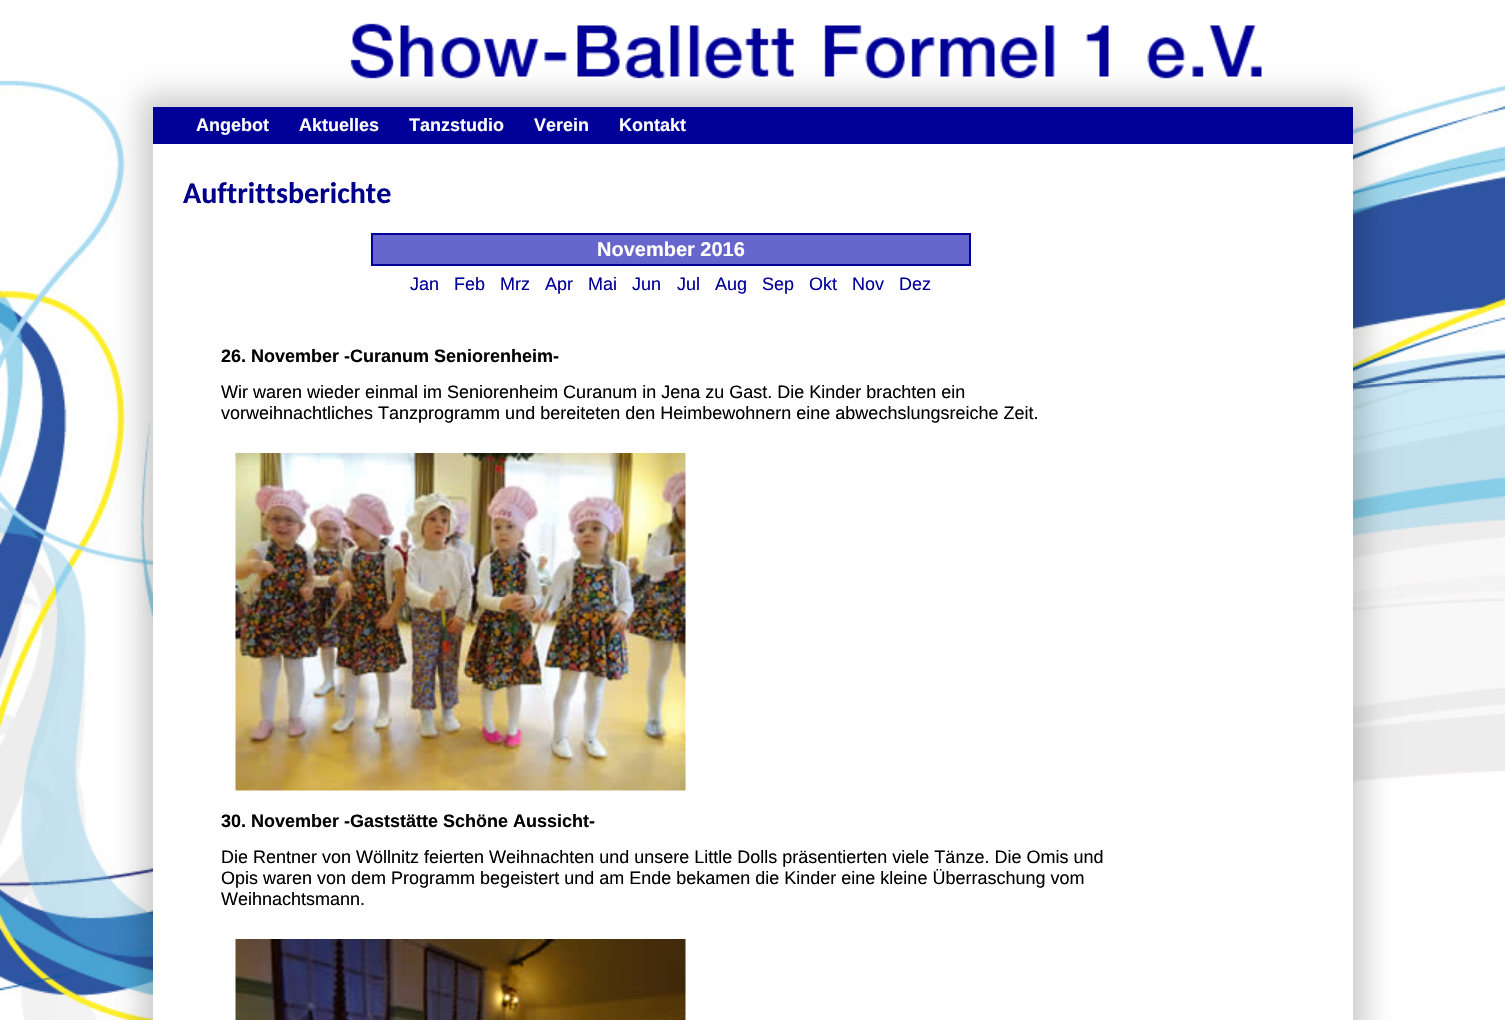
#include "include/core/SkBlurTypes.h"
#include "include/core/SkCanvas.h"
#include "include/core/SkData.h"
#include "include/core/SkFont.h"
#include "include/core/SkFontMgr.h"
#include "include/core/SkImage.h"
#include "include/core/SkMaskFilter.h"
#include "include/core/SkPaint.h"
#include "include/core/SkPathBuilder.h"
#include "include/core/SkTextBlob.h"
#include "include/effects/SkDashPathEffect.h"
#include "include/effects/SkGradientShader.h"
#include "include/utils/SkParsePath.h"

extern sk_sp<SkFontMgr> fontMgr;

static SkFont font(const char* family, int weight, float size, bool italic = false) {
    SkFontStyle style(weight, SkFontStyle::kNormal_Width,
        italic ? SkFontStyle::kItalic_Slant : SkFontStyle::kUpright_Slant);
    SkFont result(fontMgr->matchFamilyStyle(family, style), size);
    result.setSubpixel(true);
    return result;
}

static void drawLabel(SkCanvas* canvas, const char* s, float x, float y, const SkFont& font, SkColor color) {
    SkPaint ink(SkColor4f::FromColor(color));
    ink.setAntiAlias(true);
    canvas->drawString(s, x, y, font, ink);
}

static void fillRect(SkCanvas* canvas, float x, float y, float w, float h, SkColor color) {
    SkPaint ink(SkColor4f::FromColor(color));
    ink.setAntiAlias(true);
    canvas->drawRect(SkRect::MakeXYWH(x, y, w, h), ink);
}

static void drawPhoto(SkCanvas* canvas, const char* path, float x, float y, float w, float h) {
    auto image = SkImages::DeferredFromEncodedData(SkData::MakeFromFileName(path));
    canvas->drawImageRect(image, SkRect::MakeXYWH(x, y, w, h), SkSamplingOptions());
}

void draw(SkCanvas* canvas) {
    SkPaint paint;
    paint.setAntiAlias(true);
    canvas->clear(0xFFFFFFFF);
    drawPhoto(canvas, "assets/img1.png", 0, 74, 1505, 946);
    paint.setColor(0x33000000);
    paint.setMaskFilter(SkMaskFilter::MakeBlur(kNormal_SkBlurStyle, 13.5f));
    canvas->drawRect(SkRect::MakeXYWH(141, 95, 1224, 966), paint);
    paint.setMaskFilter(nullptr);
    drawPhoto(canvas, "assets/img2.png", 350, 23, 912, 56);
    fillRect(canvas, 153, 144, 1200, 876, 0xFFFFFFFF);
    fillRect(canvas, 153, 107, 1200, 37, 0xFF000099);
    SkFont font1 = font("Liberation Sans", 700, 18);
    drawLabel(canvas, "Angebot", 196, 131, font1, 0xFFFFFFFF);
    drawLabel(canvas, "Aktuelles", 299, 131, font1, 0xFFFFFFFF);
    drawLabel(canvas, "Tanzstudio", 409, 131, font1, 0xFFFFFFFF);
    drawLabel(canvas, "Verein", 534, 131, font1, 0xFFFFFFFF);
    drawLabel(canvas, "Kontakt", 619, 131, font1, 0xFFFFFFFF);
    SkFont font2 = font("Carlito", 700, 30);
    drawLabel(canvas, "Auftrittsberichte", 183, 203, font2, 0xFF00008B);
    fillRect(canvas, 373, 235, 596, 29, 0xFF6666CC);
    fillRect(canvas, 371, 233, 600, 2, 0xFF000099);
    fillRect(canvas, 969, 233, 2, 33, 0xFF000099);
    fillRect(canvas, 371, 264, 600, 2, 0xFF000099);
    fillRect(canvas, 371, 233, 2, 33, 0xFF000099);
    SkFont font3 = font("Liberation Sans", 700, 20);
    drawLabel(canvas, "November 2016", 597, 256, font3, 0xFFFFFFFF);
    SkFont font4 = font("Liberation Sans", 400, 18);
    drawLabel(canvas, "Jan", 410, 290, font4, 0xFF000099);
    drawLabel(canvas, "Feb", 454, 290, font4, 0xFF000099);
    drawLabel(canvas, "Mrz", 500, 290, font4, 0xFF000099);
    drawLabel(canvas, "Apr", 545, 290, font4, 0xFF000099);
    drawLabel(canvas, "Mai", 588, 290, font4, 0xFF000099);
    drawLabel(canvas, "Jun", 632, 290, font4, 0xFF000099);
    drawLabel(canvas, "Jul", 677, 290, font4, 0xFF000099);
    drawLabel(canvas, "Aug", 715, 290, font4, 0xFF000099);
    drawLabel(canvas, "Sep", 762, 290, font4, 0xFF000099);
    drawLabel(canvas, "Okt", 809, 290, font4, 0xFF000099);
    drawLabel(canvas, "Nov", 852, 290, font4, 0xFF000099);
    drawLabel(canvas, "Dez", 899, 290, font4, 0xFF000099);
    drawLabel(canvas, "26. November -Curanum Seniorenheim-", 221, 362, font1, 0xFF000000);
    drawLabel(canvas, "Wir waren wieder einmal im Seniorenheim Curanum in Jena zu Gast. Die Kinder brachten ein", 221, 398, font4, 0xFF000000);
    drawLabel(canvas, "vorweihnachtliches Tanzprogramm und bereiteten den Heimbewohnern eine abwechslungsreiche Zeit.", 221, 419, font4, 0xFF000000);
    drawPhoto(canvas, "assets/img3.png", 235, 453, 451, 338);
    drawLabel(canvas, "30. November -Gaststätte Schöne Aussicht-", 221, 827, font1, 0xFF000000);
    drawLabel(canvas, "Die Rentner von Wöllnitz feierten Weihnachten und unsere Little Dolls präsentierten viele Tänze. Die Omis und", 221, 863, font4, 0xFF000000);
    drawLabel(canvas, "Opis waren von dem Programm begeistert und am Ende bekamen die Kinder eine kleine Überraschung vom", 221, 884, font4, 0xFF000000);
    drawLabel(canvas, "Weihnachtsmann.", 221, 905, font4, 0xFF000000);
    drawPhoto(canvas, "assets/img4.png", 235, 939, 451, 81);
}
